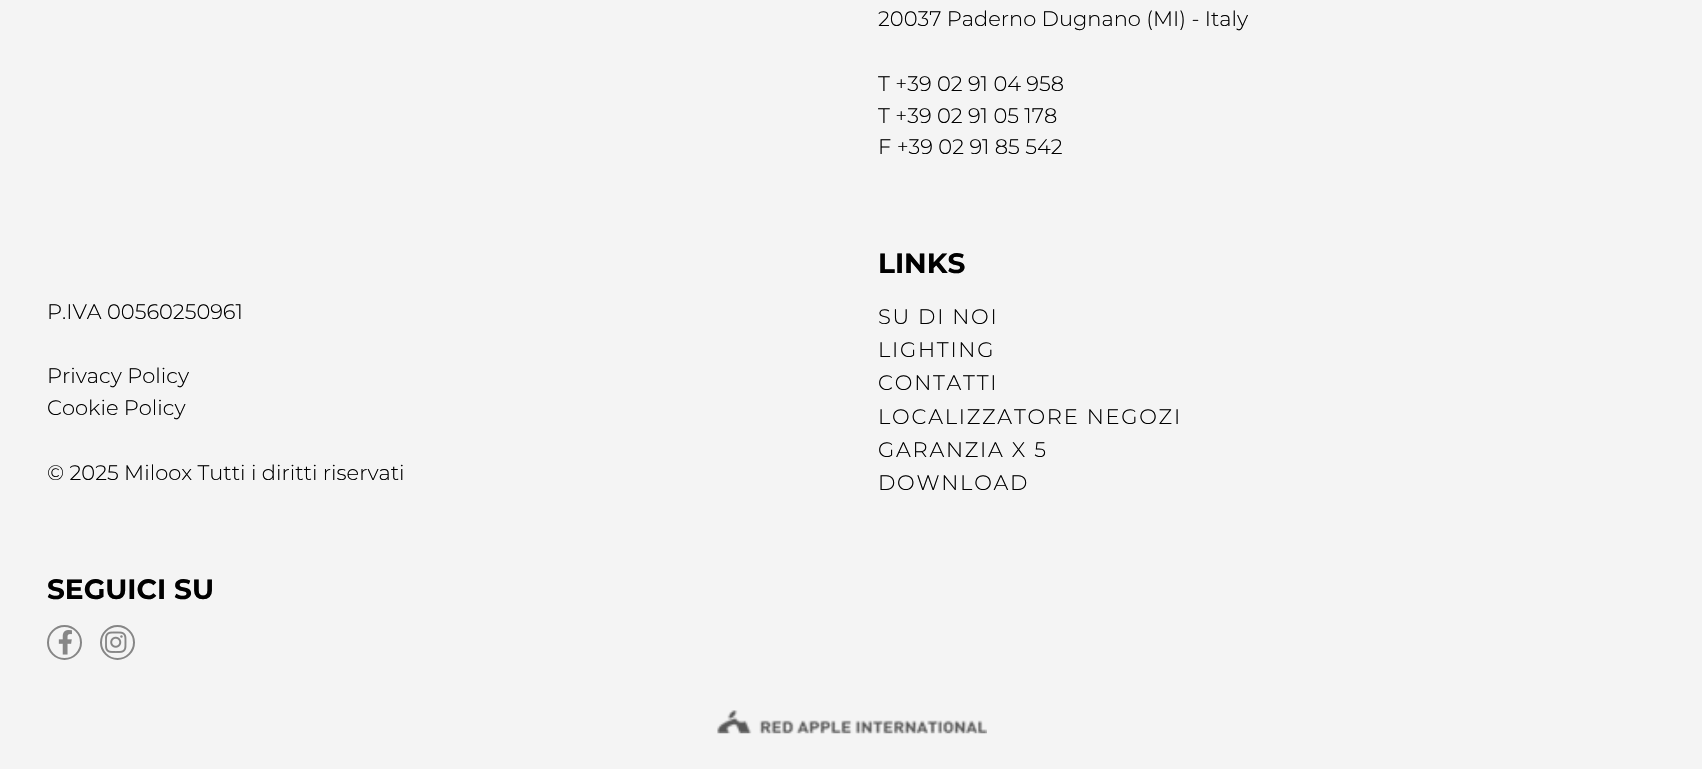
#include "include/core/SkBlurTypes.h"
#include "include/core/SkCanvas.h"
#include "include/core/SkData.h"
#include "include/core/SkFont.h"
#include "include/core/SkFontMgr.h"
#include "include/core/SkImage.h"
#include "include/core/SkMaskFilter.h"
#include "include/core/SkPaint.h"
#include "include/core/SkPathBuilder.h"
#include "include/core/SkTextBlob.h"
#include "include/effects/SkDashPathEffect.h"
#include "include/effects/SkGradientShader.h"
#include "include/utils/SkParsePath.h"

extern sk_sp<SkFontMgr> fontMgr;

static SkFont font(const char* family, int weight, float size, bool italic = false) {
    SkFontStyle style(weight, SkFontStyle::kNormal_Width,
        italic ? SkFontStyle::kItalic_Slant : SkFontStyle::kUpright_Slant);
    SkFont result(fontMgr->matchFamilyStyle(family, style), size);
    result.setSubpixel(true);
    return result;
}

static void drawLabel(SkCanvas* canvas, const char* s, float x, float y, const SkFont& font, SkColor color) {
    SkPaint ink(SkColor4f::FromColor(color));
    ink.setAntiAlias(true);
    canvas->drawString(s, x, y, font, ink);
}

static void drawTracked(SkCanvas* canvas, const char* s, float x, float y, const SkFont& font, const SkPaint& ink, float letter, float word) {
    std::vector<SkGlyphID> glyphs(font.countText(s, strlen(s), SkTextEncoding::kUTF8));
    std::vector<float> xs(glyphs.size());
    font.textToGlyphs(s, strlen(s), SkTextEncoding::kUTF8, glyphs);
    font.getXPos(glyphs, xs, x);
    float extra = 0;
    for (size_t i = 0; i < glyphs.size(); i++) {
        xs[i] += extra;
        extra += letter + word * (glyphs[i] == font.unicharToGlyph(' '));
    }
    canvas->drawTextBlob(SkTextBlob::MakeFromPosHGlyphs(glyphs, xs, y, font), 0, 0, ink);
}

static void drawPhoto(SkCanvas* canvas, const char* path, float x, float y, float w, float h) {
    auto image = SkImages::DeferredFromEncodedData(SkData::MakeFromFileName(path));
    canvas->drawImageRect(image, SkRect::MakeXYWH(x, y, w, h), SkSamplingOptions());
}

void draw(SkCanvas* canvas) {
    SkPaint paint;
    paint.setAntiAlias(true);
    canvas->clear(0xFFF4F4F4);
    SkFont font1 = font("Montserrat", 300, 21);
    drawLabel(canvas, "20037 Paderno Dugnano (MI) - Italy", 878, 26, font1, 0xFF000000);
    drawLabel(canvas, "T +39 02 91 04 958", 878, 91, font1, 0xFF000000);
    drawLabel(canvas, "T +39 02 91 05 178", 878, 123, font1, 0xFF000000);
    drawLabel(canvas, "F +39 02 91 85 542", 878, 154, font1, 0xFF000000);
    drawLabel(canvas, "P.IVA 00560250961", 47, 319, font1, 0xFF000000);
    drawLabel(canvas, "Privacy Policy", 47, 383, font1, 0xFF000000);
    drawLabel(canvas, "Cookie Policy", 47, 415, font1, 0xFF000000);
    drawLabel(canvas, "© 2025 Miloox Tutti i diritti riservati", 47, 480, font1, 0xFF000000);
    SkFont font2 = font("Montserrat", 700, 28);
    drawLabel(canvas, "LINKS", 878, 273, font2, 0xFF000000);
    paint.setColor(0xFF000000);
    drawTracked(canvas, "SU DI NOI", 878, 324, font1, paint, 1.75f, 0);
    drawTracked(canvas, "LIGHTING", 878, 357, font1, paint, 1.75f, 0);
    drawTracked(canvas, "CONTATTI", 878, 390, font1, paint, 1.75f, 0);
    drawTracked(canvas, "LOCALIZZATORE NEGOZI", 878, 424, font1, paint, 1.75f, 0);
    drawTracked(canvas, "GARANZIA X 5", 878, 457, font1, paint, 1.75f, 0);
    drawTracked(canvas, "DOWNLOAD", 878, 490, font1, paint, 1.75f, 0);
    drawLabel(canvas, "SEGUICI SU", 47, 599, font2, 0xFF000000);
    paint.setStroke(true);
    paint.setStrokeWidth(2);
    paint.setColor(0xFF868686);
    canvas->drawCircle(64.5f, 642.5f, 16.5f, paint);
    drawPhoto(canvas, "assets/img1.png", 58, 630, 14, 25);
    canvas->drawCircle(117.5f, 642.5f, 16.5f, paint);
    drawPhoto(canvas, "assets/img2.png", 105, 631, 22, 22);
    drawPhoto(canvas, "assets/img3.png", 717, 710, 270, 24);
}
